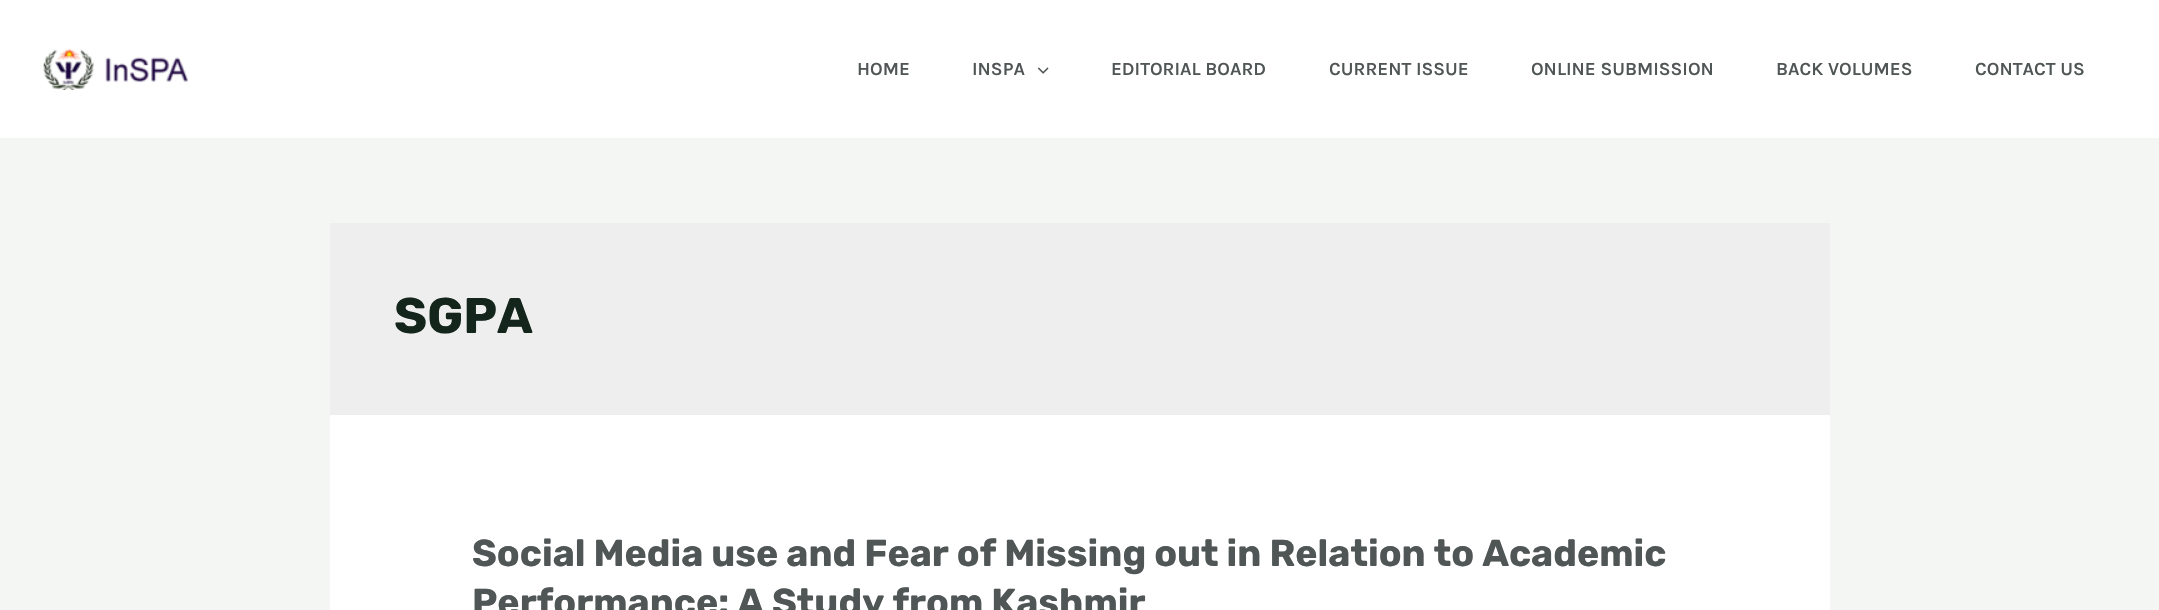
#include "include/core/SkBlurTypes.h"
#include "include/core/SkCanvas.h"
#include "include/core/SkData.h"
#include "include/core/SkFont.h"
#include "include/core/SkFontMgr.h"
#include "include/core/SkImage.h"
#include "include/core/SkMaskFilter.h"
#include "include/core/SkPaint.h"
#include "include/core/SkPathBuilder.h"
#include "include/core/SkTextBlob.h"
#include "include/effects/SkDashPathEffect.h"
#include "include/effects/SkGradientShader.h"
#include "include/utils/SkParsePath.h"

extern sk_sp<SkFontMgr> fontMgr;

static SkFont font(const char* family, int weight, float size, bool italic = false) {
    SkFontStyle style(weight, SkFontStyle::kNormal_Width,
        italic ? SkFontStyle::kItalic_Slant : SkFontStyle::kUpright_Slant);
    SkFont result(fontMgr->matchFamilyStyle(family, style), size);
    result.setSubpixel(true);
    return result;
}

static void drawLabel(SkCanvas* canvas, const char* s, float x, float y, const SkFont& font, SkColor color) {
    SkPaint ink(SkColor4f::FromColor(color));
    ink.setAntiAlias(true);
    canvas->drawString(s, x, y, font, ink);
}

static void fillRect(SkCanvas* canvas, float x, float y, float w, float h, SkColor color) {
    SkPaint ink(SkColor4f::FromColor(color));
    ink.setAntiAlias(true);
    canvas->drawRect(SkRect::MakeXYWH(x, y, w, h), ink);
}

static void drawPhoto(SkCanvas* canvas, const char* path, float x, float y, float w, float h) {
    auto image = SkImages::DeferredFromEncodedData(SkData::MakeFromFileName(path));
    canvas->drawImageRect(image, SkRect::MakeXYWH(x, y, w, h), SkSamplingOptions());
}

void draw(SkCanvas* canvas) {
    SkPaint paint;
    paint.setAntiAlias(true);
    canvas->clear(0xFFF3F6F3);
    fillRect(canvas, 0, 0, 2159, 138, 0xFFFFFFFF);
    drawPhoto(canvas, "assets/img1.png", 43, 48, 145, 42);
    SkFont font1 = font("Karla", 600, 18.75f);
    drawLabel(canvas, "HOME", 857, 75, font1, 0xFF4F5655);
    drawLabel(canvas, "INSPA", 972, 75, font1, 0xFF4F5655);
    drawPhoto(canvas, "assets/img2.png", 1038, 67, 11, 7);
    drawLabel(canvas, "EDITORIAL BOARD", 1111, 75, font1, 0xFF4F5655);
    drawLabel(canvas, "CURRENT ISSUE", 1329, 75, font1, 0xFF4F5655);
    drawLabel(canvas, "ONLINE SUBMISSION", 1531, 75, font1, 0xFF4F5655);
    drawLabel(canvas, "BACK VOLUMES", 1776, 75, font1, 0xFF4F5655);
    drawLabel(canvas, "CONTACT US", 1975, 75, font1, 0xFF4F5655);
    fillRect(canvas, 330, 223, 1500, 192, 0xFFEEEEEE);
    SkFont font2 = font("Rubik", 300, 50);
    drawLabel(canvas, "SGPA", 394, 333, font2, 0xFF14261C);
    fillRect(canvas, 330, 415, 1500, 195, 0xFFFFFFFF);
    SkFont font3 = font("Rubik", 300, 37.5f);
    drawLabel(canvas, "Social Media use and Fear of Missing out in Relation to Academic", 472, 566, font3, 0xFF4F5655);
    drawLabel(canvas, "Performance: A Study from Kashmir", 472, 615, font3, 0xFF4F5655);
}
